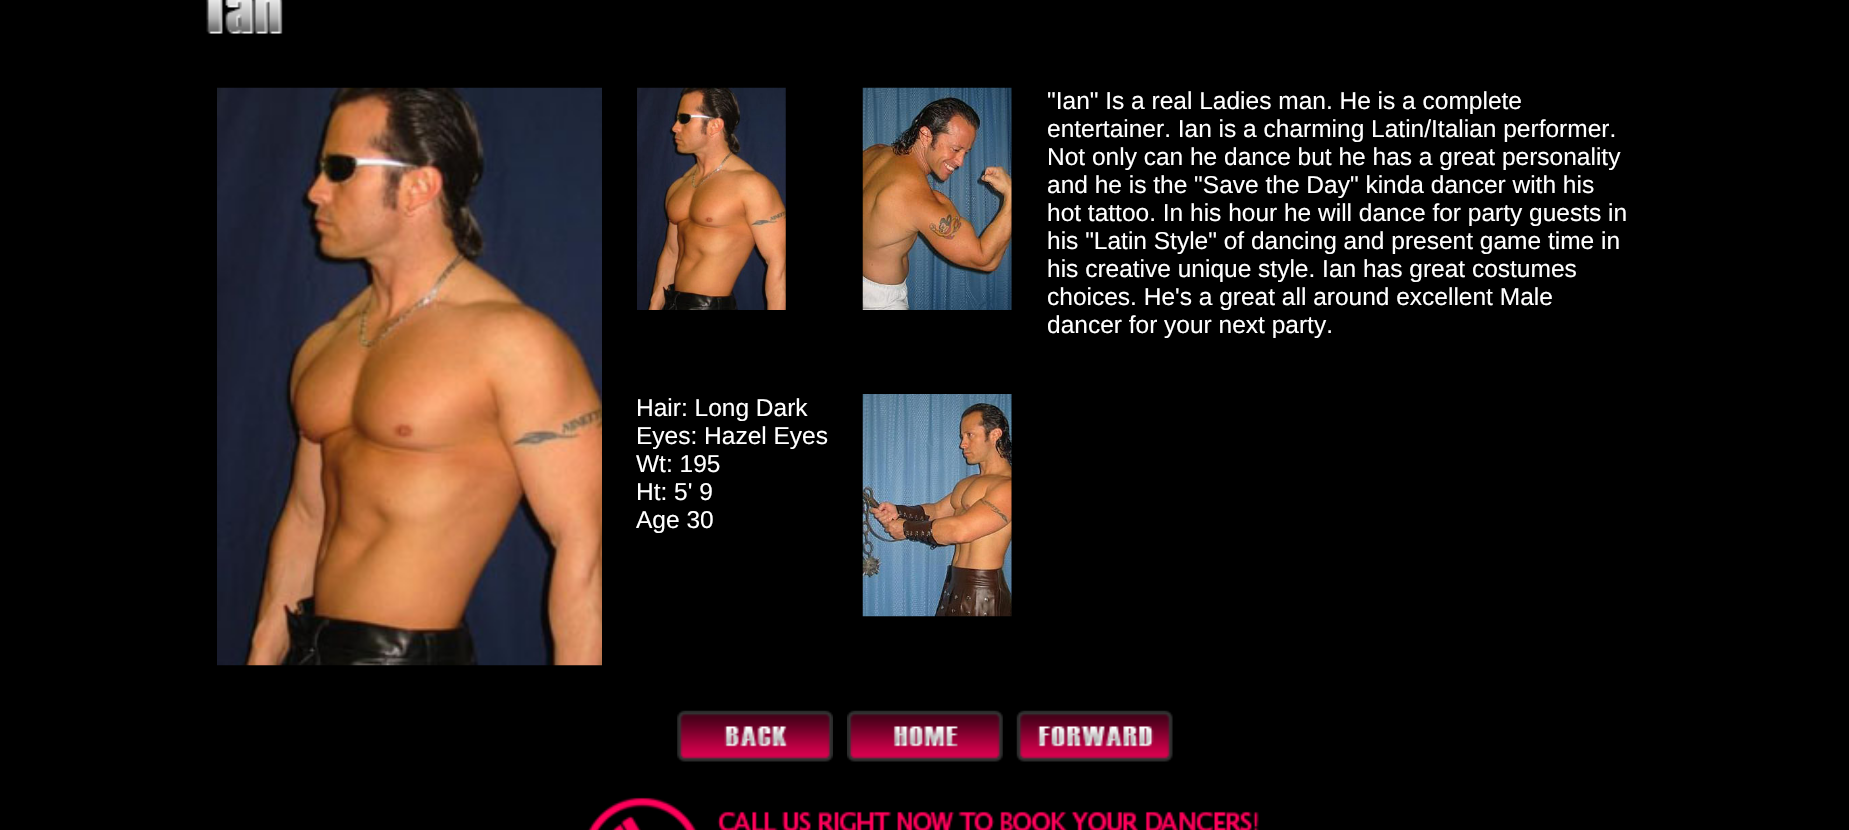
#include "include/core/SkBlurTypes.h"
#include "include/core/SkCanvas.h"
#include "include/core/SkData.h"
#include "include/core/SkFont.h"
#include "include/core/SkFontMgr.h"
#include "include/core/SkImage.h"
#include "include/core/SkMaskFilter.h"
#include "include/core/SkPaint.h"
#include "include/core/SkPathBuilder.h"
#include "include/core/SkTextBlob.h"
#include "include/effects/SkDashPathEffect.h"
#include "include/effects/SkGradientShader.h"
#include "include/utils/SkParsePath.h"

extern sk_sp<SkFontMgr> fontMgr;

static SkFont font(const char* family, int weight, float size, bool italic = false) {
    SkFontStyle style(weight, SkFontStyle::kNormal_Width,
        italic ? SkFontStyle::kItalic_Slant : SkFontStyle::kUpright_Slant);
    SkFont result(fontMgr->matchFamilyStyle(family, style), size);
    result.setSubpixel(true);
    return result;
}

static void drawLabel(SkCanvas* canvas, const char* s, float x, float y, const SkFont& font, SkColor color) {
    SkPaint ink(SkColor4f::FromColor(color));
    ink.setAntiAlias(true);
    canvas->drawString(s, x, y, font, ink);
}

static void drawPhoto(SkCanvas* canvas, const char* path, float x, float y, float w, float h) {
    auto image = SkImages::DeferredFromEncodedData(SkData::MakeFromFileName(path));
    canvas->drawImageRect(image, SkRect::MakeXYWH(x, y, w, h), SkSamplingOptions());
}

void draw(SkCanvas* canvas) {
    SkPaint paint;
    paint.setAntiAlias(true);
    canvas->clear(0xFF000000);
    drawPhoto(canvas, "assets/img1.png", 206, 0, 77, 34);
    drawPhoto(canvas, "assets/img2.png", 217, 87, 385, 579);
    drawPhoto(canvas, "assets/img3.png", 637, 87, 149, 223);
    drawPhoto(canvas, "assets/img4.png", 862, 87, 150, 223);
    SkFont font1 = font("Liberation Sans", 400, 24.5f);
    drawLabel(canvas, "\"Ian\" Is a real Ladies man. He is a complete", 1047, 109, font1, 0xFFFFFFFF);
    drawLabel(canvas, "entertainer. Ian is a charming Latin/Italian performer.", 1047, 137, font1, 0xFFFFFFFF);
    drawLabel(canvas, "Not only can he dance but he has a great personality", 1047, 165, font1, 0xFFFFFFFF);
    drawLabel(canvas, "and he is the \"Save the Day\" kinda dancer with his", 1047, 193, font1, 0xFFFFFFFF);
    drawLabel(canvas, "hot tattoo. In his hour he will dance for party guests in", 1047, 221, font1, 0xFFFFFFFF);
    drawLabel(canvas, "his \"Latin Style\" of dancing and present game time in", 1047, 249, font1, 0xFFFFFFFF);
    drawLabel(canvas, "his creative unique style. Ian has great costumes", 1047, 277, font1, 0xFFFFFFFF);
    drawLabel(canvas, "choices. He's a great all around excellent Male", 1047, 305, font1, 0xFFFFFFFF);
    drawLabel(canvas, "dancer for your next party.", 1047, 333, font1, 0xFFFFFFFF);
    drawLabel(canvas, "Hair: Long Dark", 636, 416, font1, 0xFFFFFFFF);
    drawLabel(canvas, "Eyes: Hazel Eyes", 636, 444, font1, 0xFFFFFFFF);
    drawLabel(canvas, "Wt: 195", 636, 472, font1, 0xFFFFFFFF);
    drawLabel(canvas, "Ht: 5' 9", 636, 500, font1, 0xFFFFFFFF);
    drawLabel(canvas, "Age 30", 636, 528, font1, 0xFFFFFFFF);
    drawPhoto(canvas, "assets/img5.png", 862, 394, 150, 223);
    drawPhoto(canvas, "assets/img6.png", 677, 710, 156, 52);
    drawPhoto(canvas, "assets/img7.png", 847, 710, 156, 52);
    drawPhoto(canvas, "assets/img8.png", 1016, 710, 157, 52);
    drawPhoto(canvas, "assets/img9.png", 587, 797, 672, 33);
}
